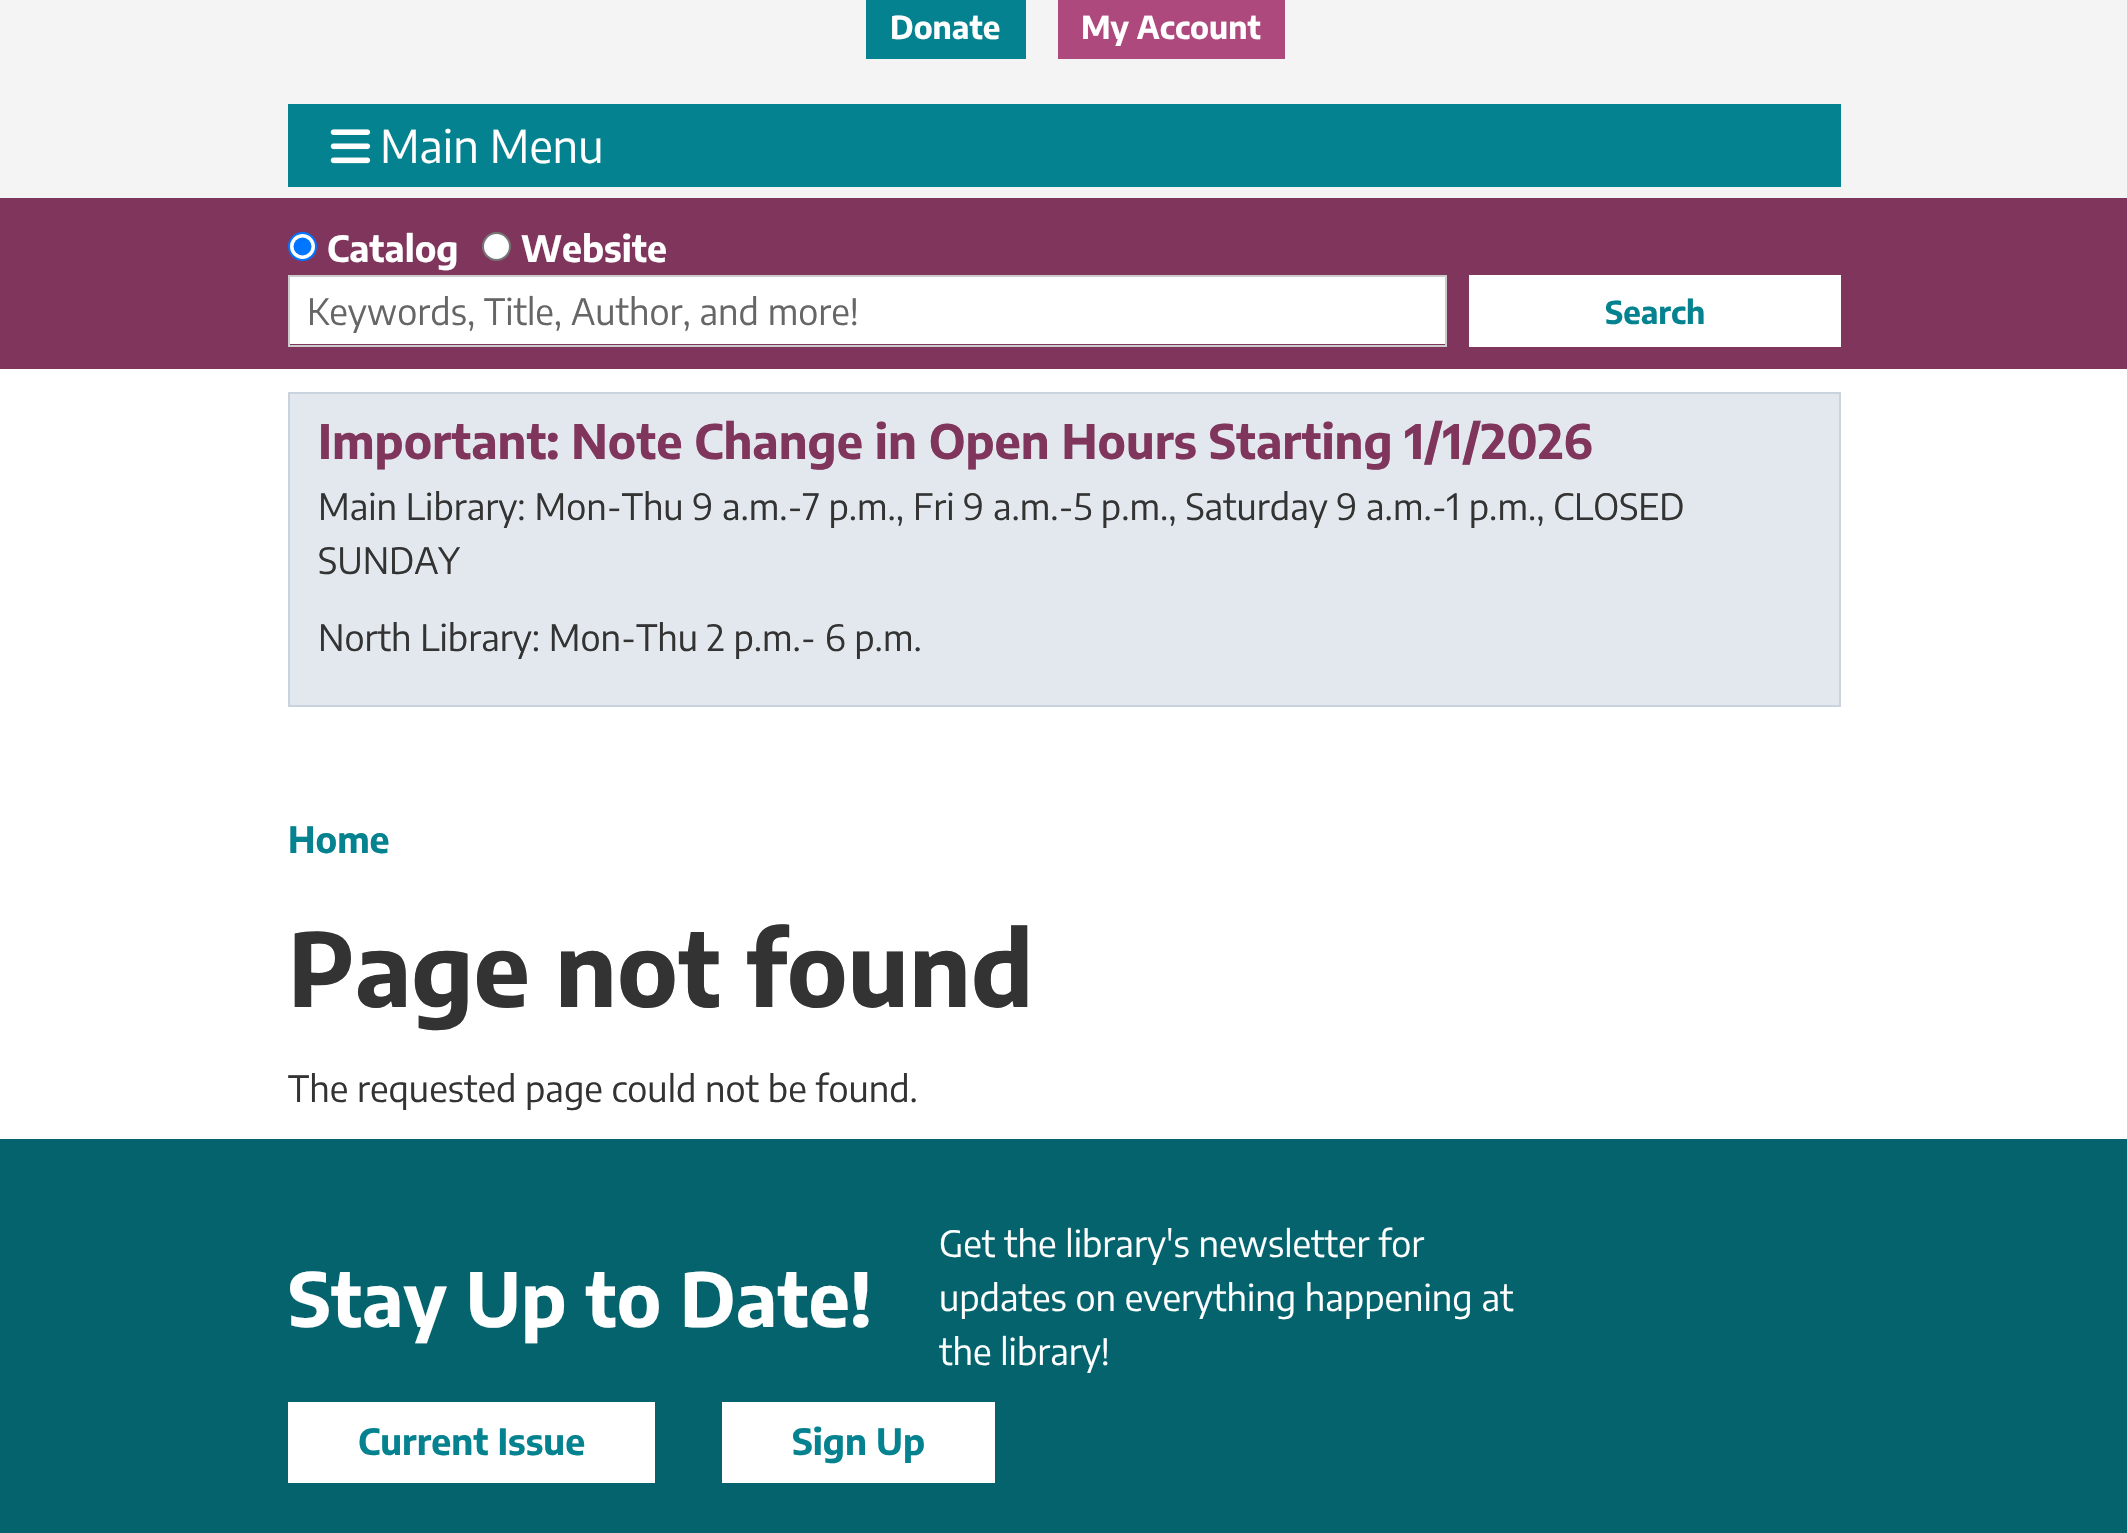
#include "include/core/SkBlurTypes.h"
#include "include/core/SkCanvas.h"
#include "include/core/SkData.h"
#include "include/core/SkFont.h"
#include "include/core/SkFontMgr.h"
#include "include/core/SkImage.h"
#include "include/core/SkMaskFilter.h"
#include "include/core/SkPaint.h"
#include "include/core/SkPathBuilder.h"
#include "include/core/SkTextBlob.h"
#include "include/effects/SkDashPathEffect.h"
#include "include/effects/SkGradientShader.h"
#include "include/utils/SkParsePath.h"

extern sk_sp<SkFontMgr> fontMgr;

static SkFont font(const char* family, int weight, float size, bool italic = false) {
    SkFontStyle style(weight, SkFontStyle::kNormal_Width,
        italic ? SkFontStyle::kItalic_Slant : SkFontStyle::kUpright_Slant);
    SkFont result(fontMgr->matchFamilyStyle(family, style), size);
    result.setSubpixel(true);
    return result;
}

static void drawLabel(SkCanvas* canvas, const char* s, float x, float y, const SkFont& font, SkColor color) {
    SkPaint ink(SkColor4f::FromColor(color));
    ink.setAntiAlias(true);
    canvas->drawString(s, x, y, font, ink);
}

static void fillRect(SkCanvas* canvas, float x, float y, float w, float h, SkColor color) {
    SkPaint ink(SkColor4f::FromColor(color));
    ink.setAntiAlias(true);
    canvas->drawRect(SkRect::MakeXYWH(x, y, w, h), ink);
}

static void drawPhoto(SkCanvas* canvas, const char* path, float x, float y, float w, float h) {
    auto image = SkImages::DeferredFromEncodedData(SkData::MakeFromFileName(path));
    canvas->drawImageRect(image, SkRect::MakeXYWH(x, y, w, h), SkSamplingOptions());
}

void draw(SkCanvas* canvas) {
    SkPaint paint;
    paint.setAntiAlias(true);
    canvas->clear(0xFFFFFFFF);
    fillRect(canvas, 0, 0, 2127, 198, 0xFFF4F4F4);
    fillRect(canvas, 866, 0, 160, 59, 0xFF05828F);
    SkFont font1 = font("Encode Sans Condensed", 700, 31.5f);
    drawLabel(canvas, "Donate", 890, 39, font1, 0xFFFFFFFF);
    fillRect(canvas, 1058, 0, 227, 59, 0xFFAE497D);
    drawLabel(canvas, "My Account", 1081, 39, font1, 0xFFFFFFFF);
    fillRect(canvas, 288, 104, 1553, 83, 0xFF05828F);
    drawPhoto(canvas, "assets/img1.png", 330, 129, 41, 35);
    SkFont font2 = font("Encode Sans Condensed", 400, 45);
    drawLabel(canvas, "Main Menu", 380, 163, font2, 0xFFFFFFFF);
    fillRect(canvas, 0, 198, 2127, 171, 0xFF80355C);
    paint.setColor(0xFFFFFFFF);
    canvas->drawCircle(302.5f, 246.5f, 13.5f, paint);
    paint.setStroke(true);
    paint.setStrokeWidth(2);
    paint.setColor(0xFF0075FF);
    canvas->drawCircle(302.5f, 246.5f, 13.5f, paint);
    paint.setStroke(false);
    canvas->drawCircle(302.5f, 246.5f, 9, paint);
    SkFont font3 = font("Encode Sans Condensed", 700, 36);
    drawLabel(canvas, "Catalog", 327, 262, font3, 0xFFFFFFFF);
    paint.setColor(0xFFFFFFFF);
    canvas->drawCircle(496.5f, 246.5f, 13.5f, paint);
    paint.setStroke(true);
    paint.setColor(0xFF767676);
    canvas->drawCircle(496.5f, 246.5f, 13.5f, paint);
    drawLabel(canvas, "Website", 521, 262, font3, 0xFFFFFFFF);
    fillRect(canvas, 290, 277, 1155, 67, 0xFFFFFFFF);
    paint.setColor(0xFFCCCCCC);
    canvas->drawRect(SkRect::MakeXYWH(289, 276, 1157, 70), paint);
    SkFont font4 = font("Encode Sans Condensed", 400, 36);
    drawLabel(canvas, "Keywords, Title, Author, and more!", 307, 325, font4, 0xFF666666);
    fillRect(canvas, 1469, 275, 372, 72, 0xFFFFFFFF);
    drawLabel(canvas, "Search", 1605, 324, font1, 0xFF05828F);
    paint.setStroke(false);
    paint.setColor(0xFFE2E8ED);
    canvas->drawRect(SkRect::MakeXYWH(289, 393, 1551, 313), paint);
    paint.setStroke(true);
    paint.setColor(0xFFC9D3DD);
    canvas->drawRect(SkRect::MakeXYWH(289, 393, 1551, 313), paint);
    SkFont font5 = font("Encode Sans Condensed", 700, 47.25f);
    drawLabel(canvas, "Important: Note Change in Open Hours Starting 1/1/2026", 318, 459, font5, 0xFF80355C);
    drawLabel(canvas, "Main Library: Mon-Thu 9 a.m.-7 p.m., Fri 9 a.m.-5 p.m., Saturday 9 a.m.-1 p.m., CLOSED", 318, 520, font4, 0xFF333333);
    drawLabel(canvas, "SUNDAY", 318, 574, font4, 0xFF333333);
    drawLabel(canvas, "North Library: Mon-Thu 2 p.m.- 6 p.m.", 318, 651, font4, 0xFF333333);
    drawLabel(canvas, "Home", 288, 853, font3, 0xFF05828F);
    SkFont font6 = font("Encode Sans Condensed", 700, 101.25f);
    drawLabel(canvas, "Page not found", 288, 1007, font6, 0xFF333333);
    drawLabel(canvas, "The requested page could not be found.", 288, 1102, font4, 0xFF333333);
    fillRect(canvas, 0, 1139, 2127, 394, 0xFF04636D);
    SkFont font7 = font("Encode Sans Condensed", 700, 74.25f);
    drawLabel(canvas, "Stay Up to Date!", 288, 1327, font7, 0xFFFFFFFF);
    drawLabel(canvas, "Get the library's newsletter for", 939, 1257, font4, 0xFFFFFFFF);
    drawLabel(canvas, "updates on everything happening at", 939, 1311, font4, 0xFFFFFFFF);
    drawLabel(canvas, "the library!", 939, 1365, font4, 0xFFFFFFFF);
    fillRect(canvas, 288, 1402, 367, 81, 0xFFFFFFFF);
    drawLabel(canvas, "Current Issue", 358, 1455, font3, 0xFF05828F);
    fillRect(canvas, 722, 1402, 273, 81, 0xFFFFFFFF);
    drawLabel(canvas, "Sign Up", 792, 1455, font3, 0xFF05828F);
}
